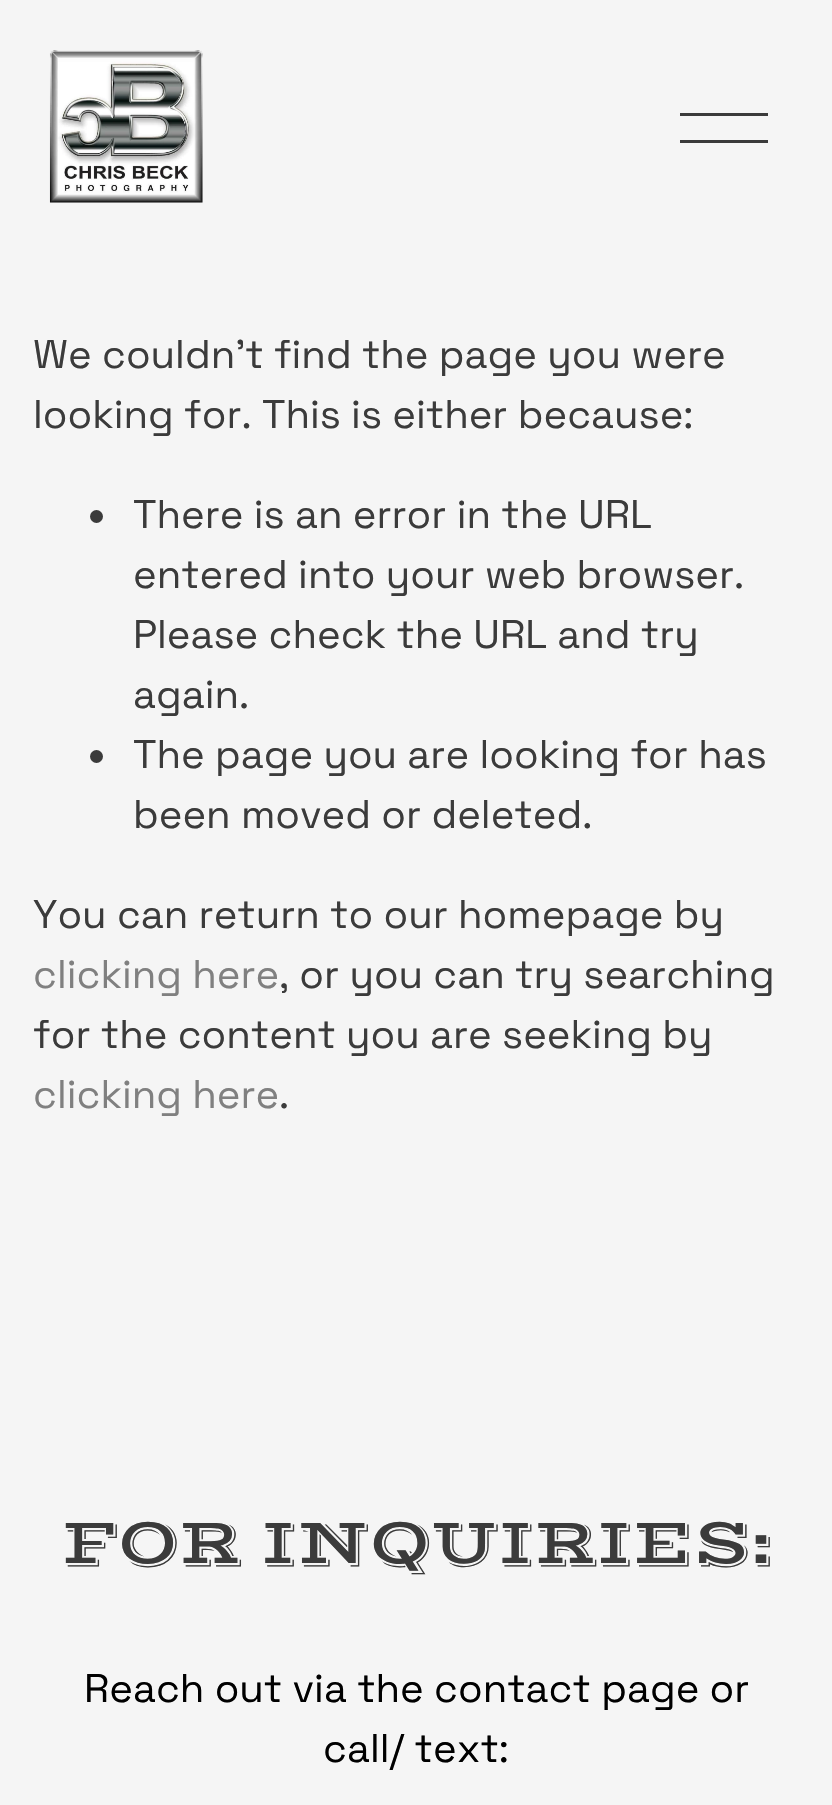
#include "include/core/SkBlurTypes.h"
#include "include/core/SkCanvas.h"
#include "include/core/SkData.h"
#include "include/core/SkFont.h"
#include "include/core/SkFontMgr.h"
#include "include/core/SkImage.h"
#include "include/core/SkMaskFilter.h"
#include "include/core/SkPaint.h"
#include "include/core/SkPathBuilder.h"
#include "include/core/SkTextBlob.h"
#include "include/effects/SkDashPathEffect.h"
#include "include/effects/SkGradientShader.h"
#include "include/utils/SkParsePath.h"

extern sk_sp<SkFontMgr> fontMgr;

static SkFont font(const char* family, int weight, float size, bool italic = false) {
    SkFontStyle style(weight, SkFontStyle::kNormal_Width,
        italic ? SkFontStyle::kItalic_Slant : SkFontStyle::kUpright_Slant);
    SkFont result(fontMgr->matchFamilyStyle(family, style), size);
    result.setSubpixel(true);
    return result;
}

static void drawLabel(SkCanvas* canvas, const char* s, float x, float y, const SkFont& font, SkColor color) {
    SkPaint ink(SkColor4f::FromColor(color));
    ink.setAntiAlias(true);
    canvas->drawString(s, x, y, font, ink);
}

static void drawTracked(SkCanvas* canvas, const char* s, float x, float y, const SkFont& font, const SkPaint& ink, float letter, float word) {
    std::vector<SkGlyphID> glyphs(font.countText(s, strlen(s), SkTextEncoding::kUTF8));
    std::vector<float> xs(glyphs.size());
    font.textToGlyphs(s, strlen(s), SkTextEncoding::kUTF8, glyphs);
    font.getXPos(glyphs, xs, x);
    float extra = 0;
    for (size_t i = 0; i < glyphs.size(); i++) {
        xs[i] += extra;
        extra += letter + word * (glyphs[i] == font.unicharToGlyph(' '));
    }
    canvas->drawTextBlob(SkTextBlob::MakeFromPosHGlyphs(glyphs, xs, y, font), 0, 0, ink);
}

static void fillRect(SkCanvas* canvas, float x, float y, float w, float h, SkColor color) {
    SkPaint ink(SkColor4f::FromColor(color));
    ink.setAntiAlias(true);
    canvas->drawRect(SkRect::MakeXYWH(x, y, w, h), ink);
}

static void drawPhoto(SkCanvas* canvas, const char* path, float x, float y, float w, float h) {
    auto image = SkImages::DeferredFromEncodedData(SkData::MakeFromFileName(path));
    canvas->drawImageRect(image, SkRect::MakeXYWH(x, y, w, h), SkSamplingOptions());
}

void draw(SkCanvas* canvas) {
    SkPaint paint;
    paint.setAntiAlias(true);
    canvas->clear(0xFFF5F5F5);
    drawPhoto(canvas, "assets/img1.png", 49, 50, 154, 153);
    fillRect(canvas, 680, 113, 88, 3, 0xFF3B3B3B);
    fillRect(canvas, 680, 140, 88, 3, 0xFF3B3B3B);
    SkFont font1 = font("Space Grotesk", 400, 40);
    drawLabel(canvas, "We couldn't find the page you were", 33, 368, font1, 0xFF3B3B3B);
    drawLabel(canvas, "looking for. This is either because:", 33, 428, font1, 0xFF3B3B3B);
    paint.setColor(0xFF3B3B3B);
    canvas->drawCircle(96.5f, 516.5f, 6.5f, paint);
    drawLabel(canvas, "There is an error in the URL", 133, 528, font1, 0xFF3B3B3B);
    drawLabel(canvas, "entered into your web browser.", 133, 588, font1, 0xFF3B3B3B);
    drawLabel(canvas, "Please check the URL and try", 133, 648, font1, 0xFF3B3B3B);
    drawLabel(canvas, "again.", 133, 708, font1, 0xFF3B3B3B);
    canvas->drawCircle(96.5f, 756.5f, 6.5f, paint);
    drawLabel(canvas, "The page you are looking for has", 133, 768, font1, 0xFF3B3B3B);
    drawLabel(canvas, "been moved or deleted.", 133, 828, font1, 0xFF3B3B3B);
    drawLabel(canvas, "You can return to our homepage by", 33, 928, font1, 0xFF3B3B3B);
    drawLabel(canvas, "clicking here", 33, 988, font1, 0xFF808080);
    drawLabel(canvas, ", or you can try searching", 279, 988, font1, 0xFF3B3B3B);
    drawLabel(canvas, "for the content you are seeking by", 33, 1048, font1, 0xFF3B3B3B);
    drawLabel(canvas, "clicking here", 33, 1108, font1, 0xFF808080);
    drawLabel(canvas, ".", 279, 1108, font1, 0xFF3B3B3B);
    SkFont font2 = font("Vast Shadow", 400, 66);
    drawTracked(canvas, "FOR INQUIRIES:", 61, 1563, font2, paint, -1.25f, 0);
    drawLabel(canvas, "Reach out via the contact page or", 84, 1702, font1, 0xFF000000);
    drawLabel(canvas, "call/ text:", 323, 1762, font1, 0xFF000000);
}
